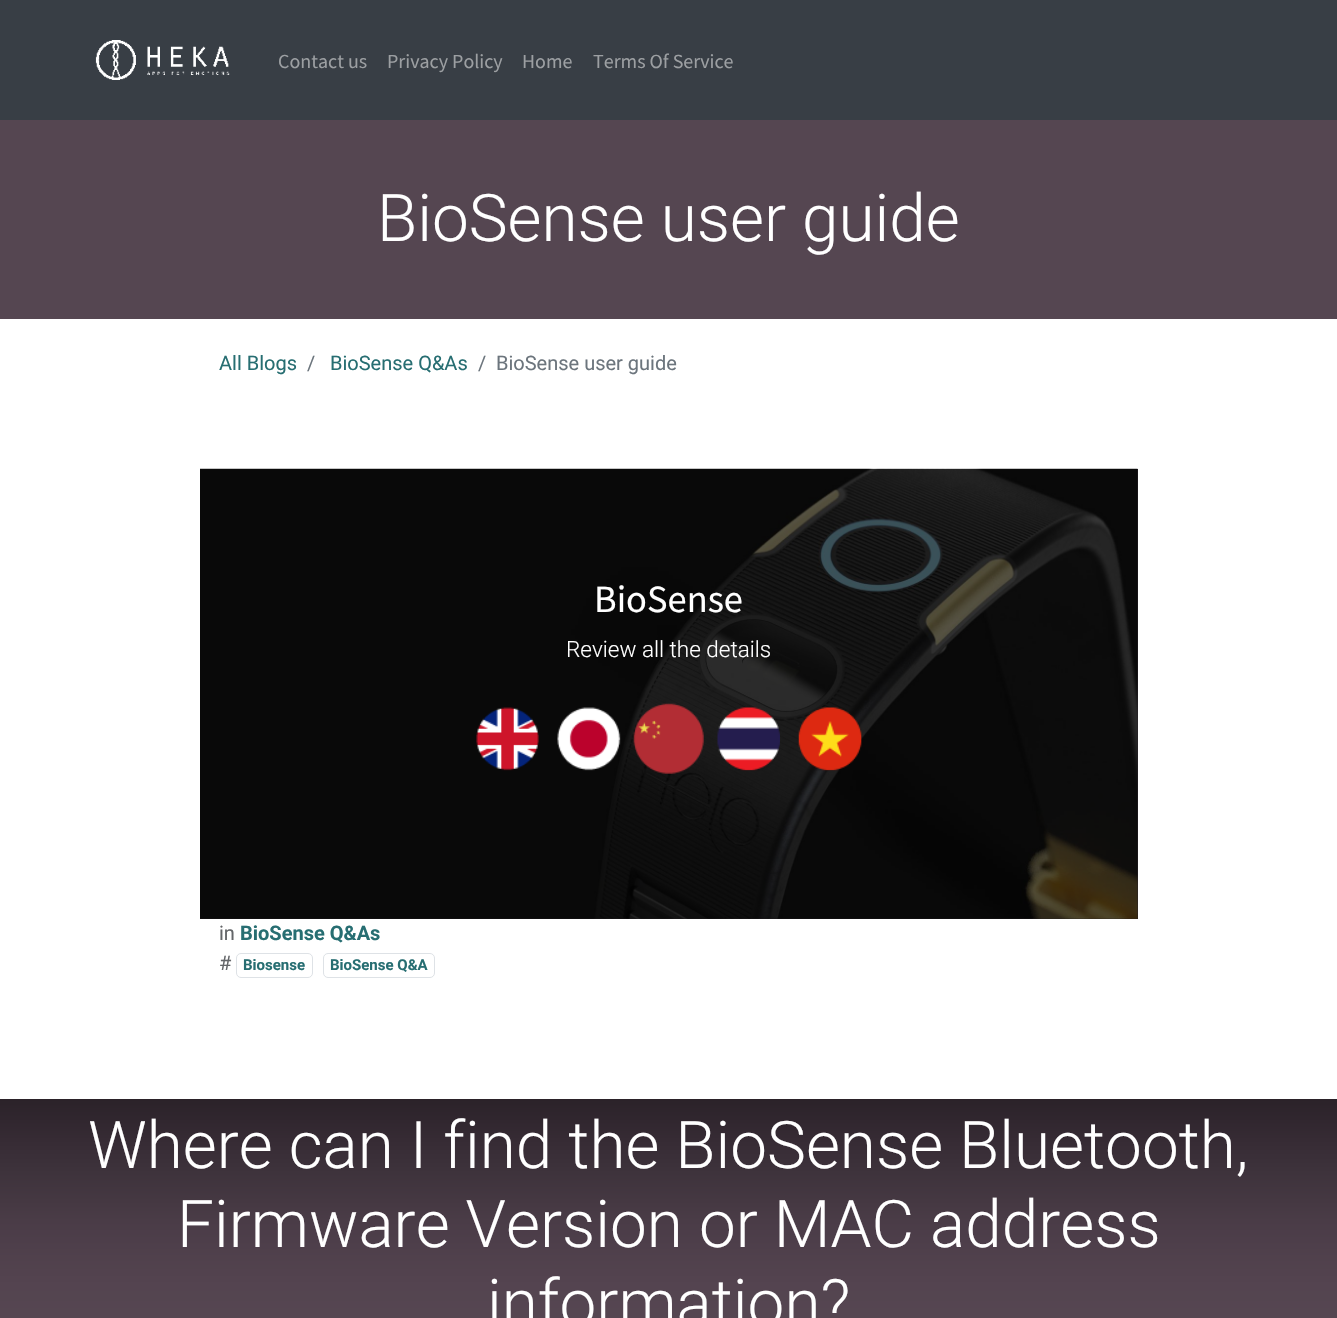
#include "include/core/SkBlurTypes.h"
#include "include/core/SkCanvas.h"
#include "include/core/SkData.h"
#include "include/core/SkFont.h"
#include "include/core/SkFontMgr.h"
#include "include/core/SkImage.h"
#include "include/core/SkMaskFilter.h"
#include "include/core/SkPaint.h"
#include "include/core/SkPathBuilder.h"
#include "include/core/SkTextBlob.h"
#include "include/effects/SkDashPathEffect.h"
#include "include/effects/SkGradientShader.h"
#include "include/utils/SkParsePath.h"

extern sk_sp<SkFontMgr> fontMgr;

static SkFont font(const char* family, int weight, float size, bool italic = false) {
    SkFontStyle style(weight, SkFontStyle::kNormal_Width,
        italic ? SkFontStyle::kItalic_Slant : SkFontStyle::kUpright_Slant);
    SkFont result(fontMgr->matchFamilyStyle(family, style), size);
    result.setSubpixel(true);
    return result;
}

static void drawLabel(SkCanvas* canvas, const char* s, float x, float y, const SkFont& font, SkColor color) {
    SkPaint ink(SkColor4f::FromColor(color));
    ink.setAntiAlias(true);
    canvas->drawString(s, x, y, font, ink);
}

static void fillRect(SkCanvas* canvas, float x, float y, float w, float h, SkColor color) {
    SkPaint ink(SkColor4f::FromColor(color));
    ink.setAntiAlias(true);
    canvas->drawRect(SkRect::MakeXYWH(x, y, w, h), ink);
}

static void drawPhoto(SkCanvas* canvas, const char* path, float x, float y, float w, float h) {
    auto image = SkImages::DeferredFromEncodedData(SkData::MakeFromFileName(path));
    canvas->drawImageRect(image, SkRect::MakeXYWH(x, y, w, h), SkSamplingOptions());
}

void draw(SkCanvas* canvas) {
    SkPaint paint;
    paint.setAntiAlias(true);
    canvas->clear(0xFFFFFFFF);
    fillRect(canvas, 0, 0, 1337, 120, 0xFF383E45);
    drawPhoto(canvas, "assets/img1.png", 95, 40, 135, 40);
    SkFont font1 = font("Source Sans Pro", 400, 20);
    drawLabel(canvas, "Contact us", 278, 68, font1, 0xFF9C9FA2);
    drawLabel(canvas, "Privacy Policy", 387, 68, font1, 0xFF9C9FA2);
    drawLabel(canvas, "Home", 522, 68, font1, 0xFF9C9FA2);
    drawLabel(canvas, "Terms Of Service", 593, 68, font1, 0xFF9C9FA2);
    fillRect(canvas, 0, 120, 1337, 199, 0xFF554651);
    SkFont font2 = font("Roboto", 300, 65.6f);
    drawLabel(canvas, "BioSense user guide", 377, 241, font2, 0xFFFFFFFF);
    SkFont font3 = font("Roboto", 400, 20);
    drawLabel(canvas, "All Blogs", 219, 370, font3, 0xFF276E72);
    drawLabel(canvas, "/", 307, 370, font3, 0xFF6C757D);
    drawLabel(canvas, "BioSense Q&As", 330, 370, font3, 0xFF276E72);
    drawLabel(canvas, "/", 478, 370, font3, 0xFF6C757D);
    drawLabel(canvas, "BioSense user guide", 496, 370, font3, 0xFF6C757D);
    fillRect(canvas, 200, 469, 938, 450, 0xFF241E23);
    drawPhoto(canvas, "assets/img2.png", 200, 468, 938, 451);
    SkFont font4 = font("Source Sans Pro", 400, 38.5f);
    drawLabel(canvas, "BioSense", 594, 612, font4, 0xFFFFFFFF);
    SkFont font5 = font("Roboto", 300, 22.5f);
    drawLabel(canvas, "Review all the details", 566, 657, font5, 0xFFFFFFFF);
    drawPhoto(canvas, "assets/img3.png", 476, 707, 63, 64);
    drawPhoto(canvas, "assets/img4.png", 557, 707, 64, 64);
    drawPhoto(canvas, "assets/img5.png", 633, 703, 71, 71);
    drawPhoto(canvas, "assets/img6.png", 717, 707, 63, 64);
    drawPhoto(canvas, "assets/img7.png", 798, 707, 64, 64);
    drawLabel(canvas, "in", 219, 940, font3, 0xFF646669);
    SkFont font6 = font("Roboto", 700, 20);
    drawLabel(canvas, "BioSense Q&As", 240, 940, font6, 0xFF276E72);
    drawLabel(canvas, "#", 219, 970, font3, 0xFF646669);
    paint.setStroke(true);
    paint.setStrokeWidth(1);
    paint.setColor(0xFFDEE2E6);
    canvas->drawRoundRect(SkRect::MakeXYWH(236.5f, 953.5f, 76, 24), 4.5f, 4.5f, paint);
    SkFont font7 = font("Roboto", 700, 15);
    drawLabel(canvas, "Biosense", 243, 970, font7, 0xFF276E72);
    canvas->drawRoundRect(SkRect::MakeXYWH(323.5f, 953.5f, 111, 24), 4.5f, 4.5f, paint);
    drawLabel(canvas, "BioSense Q&A", 330, 970, font7, 0xFF276E72);
    fillRect(canvas, 0, 1316, 1337, 2, 0xFF554651);
    paint.setStroke(false);
    {
        const SkColor colors[] = {0xFF2B2229, 0xFF362B34, 0xFF3E333C, 0xFF453842, 0xFF4A3C47, 0xFF4D3E4A, 0xFF50414C, 0xFF52424E, 0xFF544450, 0xFF544550, 0xFF554551, 0xFF554651, 0xFF554651};
        const float stops[] = {0, 0.19f, 0.34f, 0.47f, 0.56f, 0.65f, 0.73f, 0.8f, 0.86f, 0.91f, 0.95f, 0.98f, 1};
        const SkPoint ends[] = {{669, 1099}, {669, 1316}};
        paint.setShader(SkGradientShader::MakeLinear(ends, colors, stops, 13, SkTileMode::kClamp));
        paint.setAlpha(255);
    }
    canvas->drawRect(SkRect::MakeXYWH(0, 1099, 1337, 217), paint);
    drawLabel(canvas, "Where can I find the BioSense Bluetooth,", 88, 1168, font2, 0xFFFFFFFF);
    drawLabel(canvas, "Firmware Version or MAC address", 177, 1247, font2, 0xFFFFFFFF);
    drawLabel(canvas, "information?", 487, 1326, font2, 0xFFFFFFFF);
}
